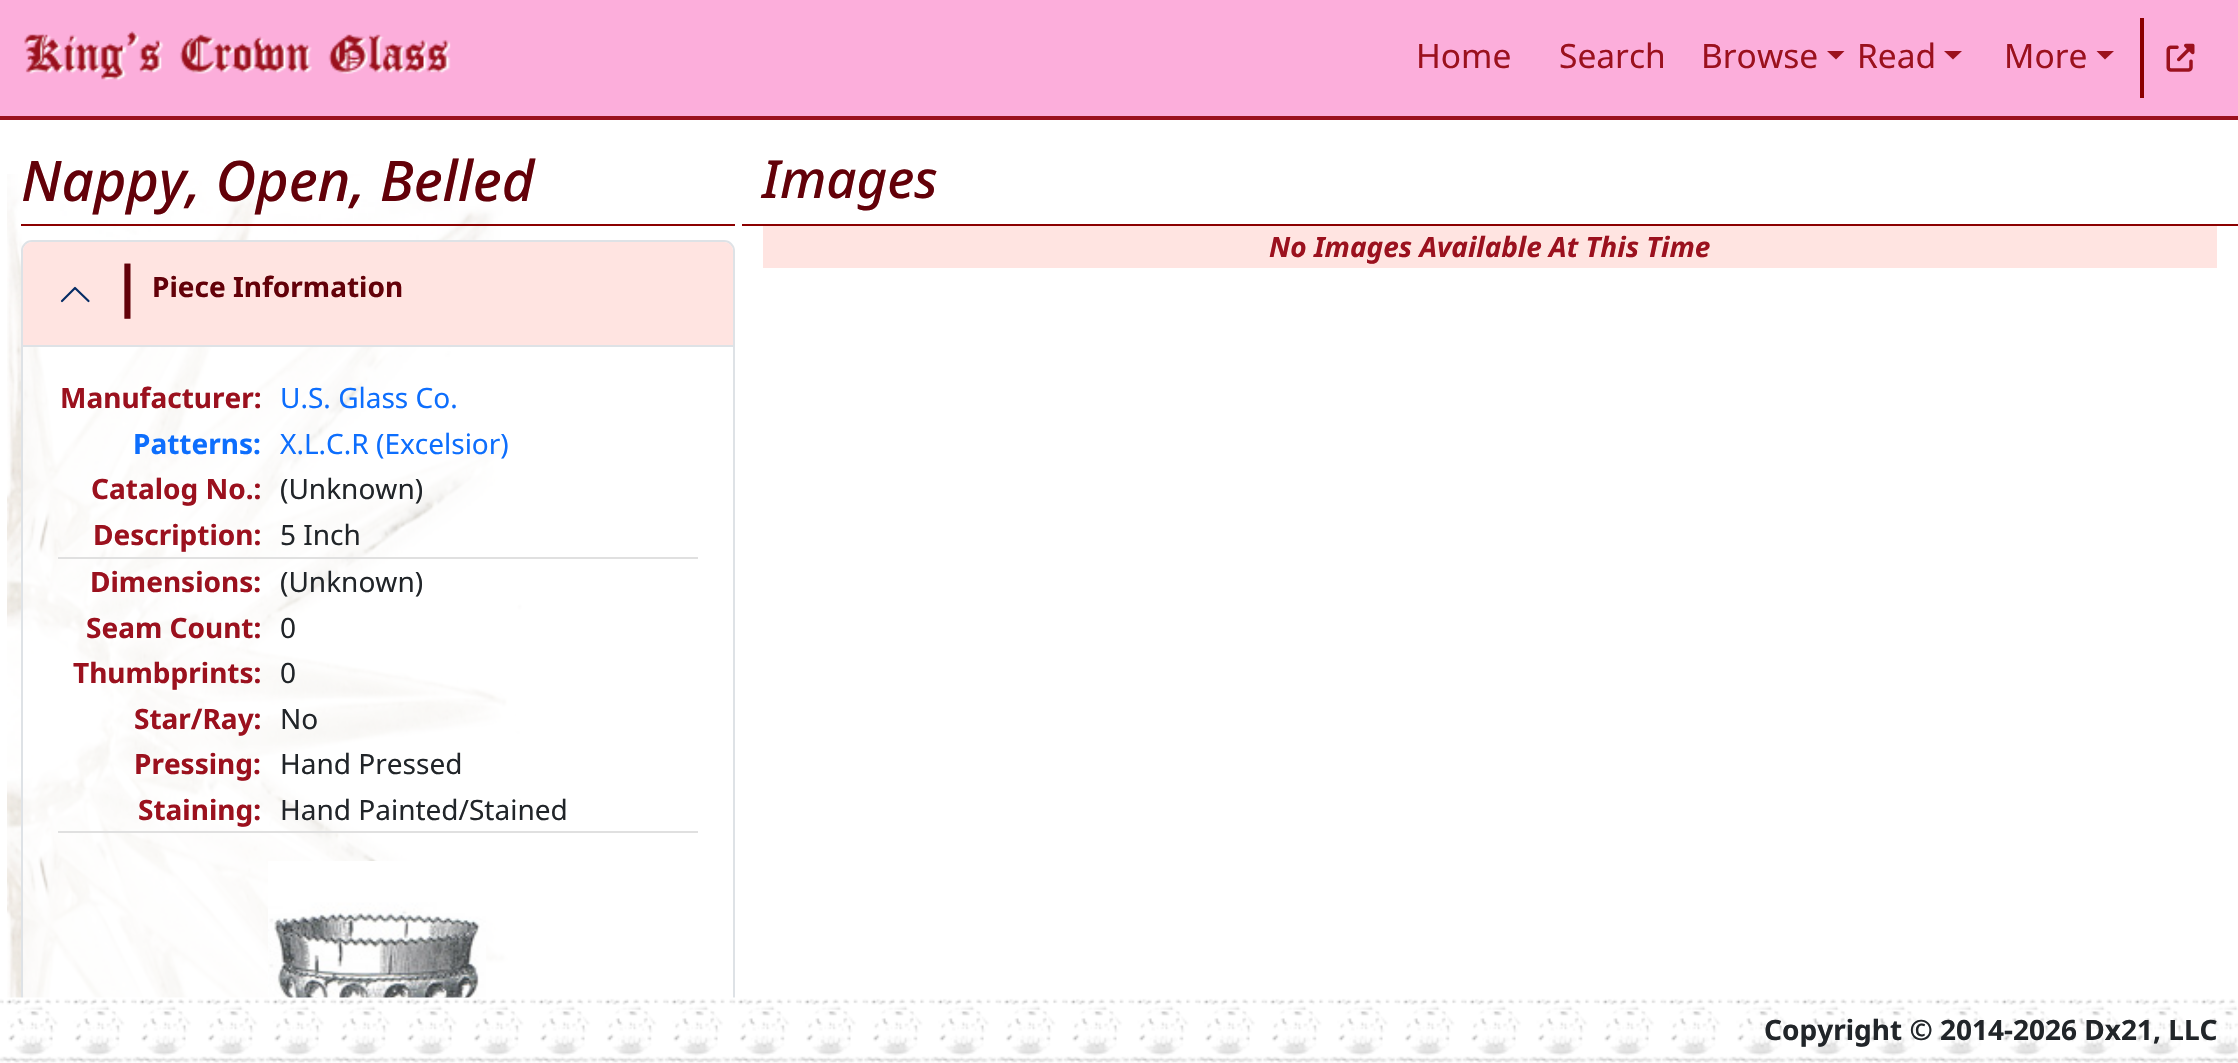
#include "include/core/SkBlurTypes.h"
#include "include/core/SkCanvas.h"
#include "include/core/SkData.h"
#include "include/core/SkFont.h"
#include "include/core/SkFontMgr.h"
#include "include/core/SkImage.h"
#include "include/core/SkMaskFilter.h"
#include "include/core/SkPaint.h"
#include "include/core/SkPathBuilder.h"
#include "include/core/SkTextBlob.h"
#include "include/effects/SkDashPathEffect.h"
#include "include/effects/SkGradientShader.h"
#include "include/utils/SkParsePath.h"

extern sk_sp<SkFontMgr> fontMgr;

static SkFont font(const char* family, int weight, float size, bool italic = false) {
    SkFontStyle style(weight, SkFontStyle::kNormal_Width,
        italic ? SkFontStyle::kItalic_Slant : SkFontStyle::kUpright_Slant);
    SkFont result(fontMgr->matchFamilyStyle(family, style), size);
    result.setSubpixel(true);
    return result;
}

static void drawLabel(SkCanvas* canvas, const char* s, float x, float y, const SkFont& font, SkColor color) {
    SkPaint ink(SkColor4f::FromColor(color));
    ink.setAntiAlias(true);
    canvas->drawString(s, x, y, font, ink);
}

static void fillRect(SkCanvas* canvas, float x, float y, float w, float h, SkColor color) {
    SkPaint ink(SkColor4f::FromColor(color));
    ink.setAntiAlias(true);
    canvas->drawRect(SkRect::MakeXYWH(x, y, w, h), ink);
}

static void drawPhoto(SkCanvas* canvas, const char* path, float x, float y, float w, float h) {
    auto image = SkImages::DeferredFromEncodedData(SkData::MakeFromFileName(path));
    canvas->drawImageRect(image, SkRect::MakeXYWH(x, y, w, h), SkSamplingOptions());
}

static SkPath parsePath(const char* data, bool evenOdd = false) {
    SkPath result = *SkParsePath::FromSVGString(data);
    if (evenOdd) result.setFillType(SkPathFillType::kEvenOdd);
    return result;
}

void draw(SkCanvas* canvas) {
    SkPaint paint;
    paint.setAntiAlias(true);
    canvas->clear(0xFFFFFFFF);
    fillRect(canvas, 0, 0, 2238, 116, 0xFFFCAEDB);
    fillRect(canvas, 0, 116, 2238, 4, 0xFF9B111E);
    drawPhoto(canvas, "assets/img1.png", 24, 31, 427, 50);
    SkFont font1 = font("Noto Sans", 400, 33.5f);
    drawLabel(canvas, "Home", 1416, 68, font1, 0xFF9B111E);
    drawLabel(canvas, "Search", 1559, 68, font1, 0xFF9B111E);
    drawLabel(canvas, "Browse", 1701, 68, font1, 0xFF9B111E);
    paint.setColor(0xFF9B111E);
    canvas->drawPath(parsePath("M1827 51H1844.5L1836 59.5Z"), paint);
    drawLabel(canvas, "Read", 1857, 68, font1, 0xFF9B111E);
    canvas->drawPath(parsePath("M1944 51H1962L1953 59.5Z"), paint);
    drawLabel(canvas, "More", 2004, 68, font1, 0xFF9B111E);
    canvas->drawPath(parsePath("M2096.5 51H2114L2105 59.5Z"), paint);
    fillRect(canvas, 2140, 18, 4, 80, 0xFF8B0000);
    drawPhoto(canvas, "assets/img2.png", 2166, 43, 29, 29);
    drawPhoto(canvas, "assets/img3.png", 7, 174, 515, 824);
    fillRect(canvas, 21, 224, 714, 2, 0xFF8B0000);
    SkFont font2 = font("Noto Sans", 500, 56, true);
    drawLabel(canvas, "Nappy, Open, Belled", 21, 201, font2, 0xFF630109);
    paint.setStroke(true);
    paint.setStrokeWidth(2);
    paint.setColor(0xFFDEE2E6);
    canvas->drawPath(parsePath("M32 241H724C729.5 241 734 245.5 734 251V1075H22V251C22 245.5 26.5 241 32 241Z"), paint);
    paint.setStroke(false);
    paint.setColor(0xFFFFE4E1);
    canvas->drawPath(parsePath("M32 242H724C729 242 733 246 733 251V347H23V251C23 246 27 242 32 242Z"), paint);
    fillRect(canvas, 23, 345, 710, 2, 0xFFDEE2E6);
    paint.setStroke(true);
    paint.setStrokeWidth(2.2f);
    paint.setStrokeCap(SkPaint::kRound_Cap);
    paint.setStrokeJoin(SkPaint::kRound_Join);
    paint.setColor(0xFF052C65);
    canvas->drawPath(parsePath("M88.5 301L75 288L62 301"), paint);
    SkFont font3 = font("Noto Sans", 700, 56);
    drawLabel(canvas, "|", 112, 306, font3, 0xFF630109);
    SkFont font4 = font("Noto Sans", 700, 28);
    drawLabel(canvas, "Piece Information", 152, 297, font4, 0xFF630109);
    fillRect(canvas, 23, 347, 499, 651, 0xB3FFFFFF);
    drawLabel(canvas, "Manufacturer:", 60, 408, font4, 0xFF9B111E);
    SkFont font5 = font("Noto Sans", 400, 28);
    drawLabel(canvas, "U.S. Glass Co.", 280, 408, font5, 0xFF0D6EFD);
    drawLabel(canvas, "Patterns:", 133, 454, font4, 0xFF0D6EFD);
    drawLabel(canvas, "X.L.C.R (Excelsior)", 280, 454, font5, 0xFF0D6EFD);
    drawLabel(canvas, "Catalog No.:", 91, 499, font4, 0xFF9B111E);
    drawLabel(canvas, "(Unknown)", 280, 499, font5, 0xFF212529);
    fillRect(canvas, 58, 557, 640, 2, 0xFFE0E0E0);
    drawLabel(canvas, "Description:", 93, 545, font4, 0xFF9B111E);
    drawLabel(canvas, "5 Inch", 280, 545, font5, 0xFF212529);
    drawLabel(canvas, "Dimensions:", 90, 592, font4, 0xFF9B111E);
    drawLabel(canvas, "(Unknown)", 280, 592, font5, 0xFF212529);
    drawLabel(canvas, "Seam Count:", 86, 638, font4, 0xFF9B111E);
    drawLabel(canvas, "0", 280, 638, font5, 0xFF212529);
    drawLabel(canvas, "Thumbprints:", 73, 683, font4, 0xFF9B111E);
    drawLabel(canvas, "0", 280, 683, font5, 0xFF212529);
    drawLabel(canvas, "Star/Ray:", 134, 729, font4, 0xFF9B111E);
    drawLabel(canvas, "No", 280, 729, font5, 0xFF212529);
    drawLabel(canvas, "Pressing:", 134, 774, font4, 0xFF9B111E);
    drawLabel(canvas, "Hand Pressed", 280, 774, font5, 0xFF212529);
    fillRect(canvas, 58, 831, 640, 2, 0xFFE0E0E0);
    drawLabel(canvas, "Staining:", 138, 820, font4, 0xFF9B111E);
    drawLabel(canvas, "Hand Painted/Stained", 280, 820, font5, 0xFF212529);
    drawPhoto(canvas, "assets/img4.png", 268, 861, 218, 137);
    fillRect(canvas, 742, 224, 1496, 2, 0xFF8B0000);
    SkFont font6 = font("Noto Sans", 500, 52.5f, true);
    drawLabel(canvas, "Images", 762, 198, font6, 0xFF630109);
    fillRect(canvas, 763, 226, 1454, 42, 0xFFFFE4E1);
    SkFont font7 = font("Noto Sans", 700, 28, true);
    drawLabel(canvas, "No Images Available At This Time", 1269, 257, font7, 0xFF9B111E);
    drawPhoto(canvas, "assets/img5.png", 0, 997, 2238, 66);
    drawLabel(canvas, "Copyright © 2014-2026 Dx21, LLC", 1764, 1040, font4, 0xFF212529);
}
